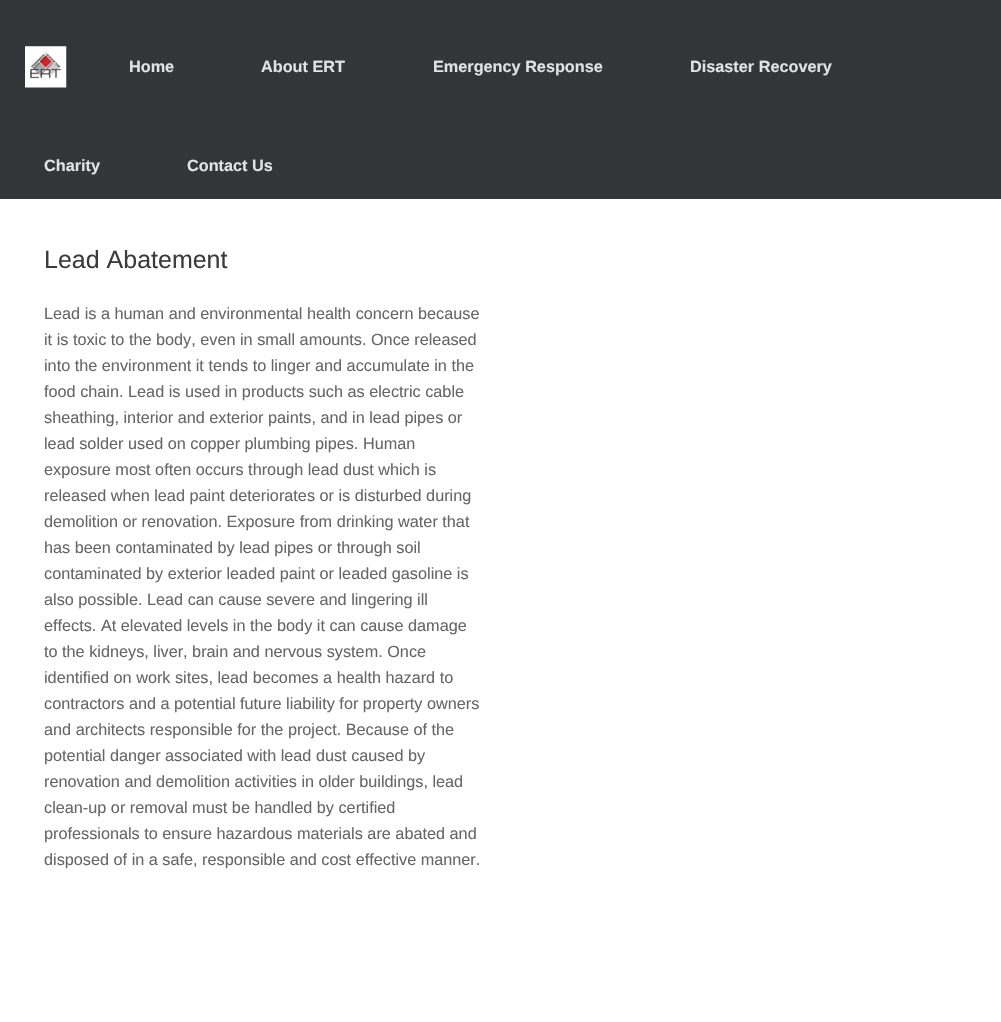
#include "include/core/SkBlurTypes.h"
#include "include/core/SkCanvas.h"
#include "include/core/SkData.h"
#include "include/core/SkFont.h"
#include "include/core/SkFontMgr.h"
#include "include/core/SkImage.h"
#include "include/core/SkMaskFilter.h"
#include "include/core/SkPaint.h"
#include "include/core/SkPathBuilder.h"
#include "include/core/SkTextBlob.h"
#include "include/effects/SkDashPathEffect.h"
#include "include/effects/SkGradientShader.h"
#include "include/utils/SkParsePath.h"

extern sk_sp<SkFontMgr> fontMgr;

static SkFont font(const char* family, int weight, float size, bool italic = false) {
    SkFontStyle style(weight, SkFontStyle::kNormal_Width,
        italic ? SkFontStyle::kItalic_Slant : SkFontStyle::kUpright_Slant);
    SkFont result(fontMgr->matchFamilyStyle(family, style), size);
    result.setSubpixel(true);
    return result;
}

static void drawLabel(SkCanvas* canvas, const char* s, float x, float y, const SkFont& font, SkColor color) {
    SkPaint ink(SkColor4f::FromColor(color));
    ink.setAntiAlias(true);
    canvas->drawString(s, x, y, font, ink);
}

static void fillRect(SkCanvas* canvas, float x, float y, float w, float h, SkColor color) {
    SkPaint ink(SkColor4f::FromColor(color));
    ink.setAntiAlias(true);
    canvas->drawRect(SkRect::MakeXYWH(x, y, w, h), ink);
}

static void drawPhoto(SkCanvas* canvas, const char* path, float x, float y, float w, float h) {
    auto image = SkImages::DeferredFromEncodedData(SkData::MakeFromFileName(path));
    canvas->drawImageRect(image, SkRect::MakeXYWH(x, y, w, h), SkSamplingOptions());
}

void draw(SkCanvas* canvas) {
    SkPaint paint;
    paint.setAntiAlias(true);
    canvas->clear(0xFFFFFFFF);
    fillRect(canvas, 0, 0, 1001, 199, 0xFF343538);
    drawPhoto(canvas, "assets/img1.png", 25, 46, 42, 42);
    SkFont font1 = font("Liberation Sans", 700, 16.25f);
    drawLabel(canvas, "Home", 129, 72, font1, 0xFFE2E2E2);
    drawLabel(canvas, "About ERT", 261, 72, font1, 0xFFE2E2E2);
    drawLabel(canvas, "Emergency Response", 433, 72, font1, 0xFFE2E2E2);
    drawLabel(canvas, "Disaster Recovery", 690, 72, font1, 0xFFE2E2E2);
    drawLabel(canvas, "Charity", 44, 171, font1, 0xFFE2E2E2);
    drawLabel(canvas, "Contact Us", 187, 171, font1, 0xFFE2E2E2);
    SkFont font2 = font("Liberation Sans", 400, 25);
    drawLabel(canvas, "Lead Abatement", 44, 268, font2, 0xFF3B3B3B);
    SkFont font3 = font("Liberation Sans", 400, 16.25f);
    drawLabel(canvas, "Lead is a human and environmental health concern because", 44, 319, font3, 0xFF666666);
    drawLabel(canvas, "it is toxic to the body, even in small amounts. Once released", 44, 345, font3, 0xFF666666);
    drawLabel(canvas, "into the environment it tends to linger and accumulate in the", 44, 371, font3, 0xFF666666);
    drawLabel(canvas, "food chain. Lead is used in products such as electric cable", 44, 397, font3, 0xFF666666);
    drawLabel(canvas, "sheathing, interior and exterior paints, and in lead pipes or", 44, 423, font3, 0xFF666666);
    drawLabel(canvas, "lead solder used on copper plumbing pipes. Human", 44, 449, font3, 0xFF666666);
    drawLabel(canvas, "exposure most often occurs through lead dust which is", 44, 475, font3, 0xFF666666);
    drawLabel(canvas, "released when lead paint deteriorates or is disturbed during", 44, 501, font3, 0xFF666666);
    drawLabel(canvas, "demolition or renovation. Exposure from drinking water that", 44, 527, font3, 0xFF666666);
    drawLabel(canvas, "has been contaminated by lead pipes or through soil", 44, 553, font3, 0xFF666666);
    drawLabel(canvas, "contaminated by exterior leaded paint or leaded gasoline is", 44, 579, font3, 0xFF666666);
    drawLabel(canvas, "also possible. Lead can cause severe and lingering ill", 44, 605, font3, 0xFF666666);
    drawLabel(canvas, "effects. At elevated levels in the body it can cause damage", 44, 631, font3, 0xFF666666);
    drawLabel(canvas, "to the kidneys, liver, brain and nervous system. Once", 44, 657, font3, 0xFF666666);
    drawLabel(canvas, "identified on work sites, lead becomes a health hazard to", 44, 683, font3, 0xFF666666);
    drawLabel(canvas, "contractors and a potential future liability for property owners", 44, 709, font3, 0xFF666666);
    drawLabel(canvas, "and architects responsible for the project. Because of the", 44, 735, font3, 0xFF666666);
    drawLabel(canvas, "potential danger associated with lead dust caused by", 44, 761, font3, 0xFF666666);
    drawLabel(canvas, "renovation and demolition activities in older buildings, lead", 44, 787, font3, 0xFF666666);
    drawLabel(canvas, "clean-up or removal must be handled by certified", 44, 813, font3, 0xFF666666);
    drawLabel(canvas, "professionals to ensure hazardous materials are abated and", 44, 839, font3, 0xFF666666);
    drawLabel(canvas, "disposed of in a safe, responsible and cost effective manner.", 44, 865, font3, 0xFF666666);
}
